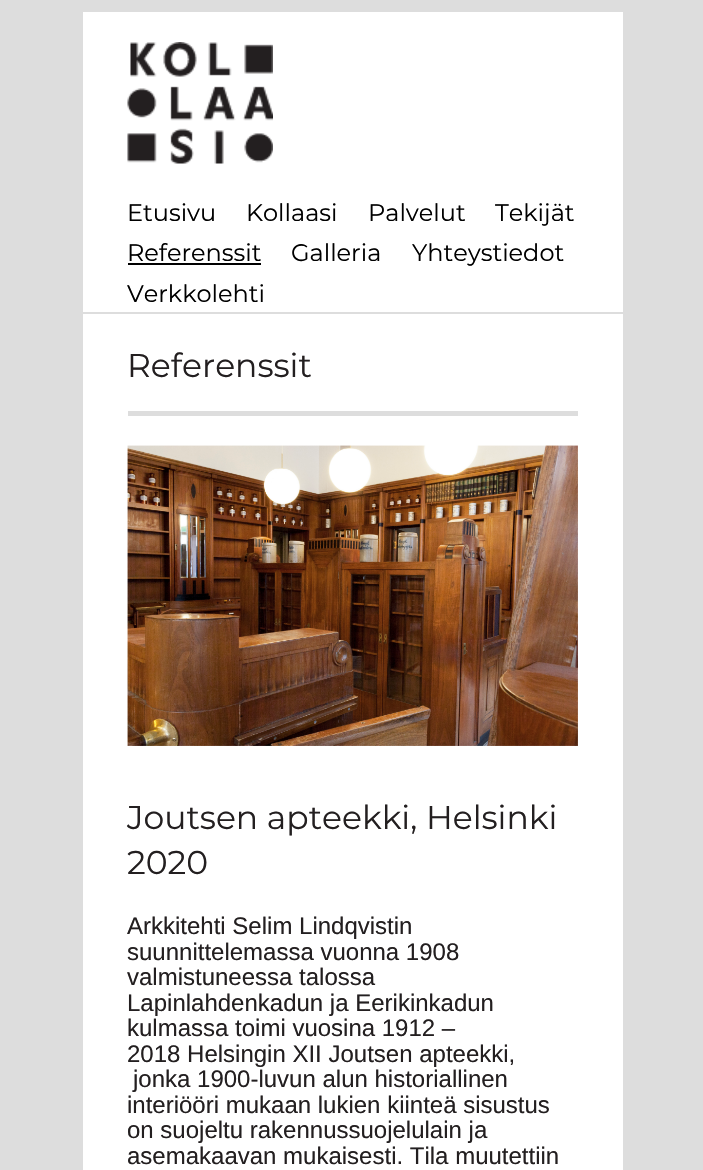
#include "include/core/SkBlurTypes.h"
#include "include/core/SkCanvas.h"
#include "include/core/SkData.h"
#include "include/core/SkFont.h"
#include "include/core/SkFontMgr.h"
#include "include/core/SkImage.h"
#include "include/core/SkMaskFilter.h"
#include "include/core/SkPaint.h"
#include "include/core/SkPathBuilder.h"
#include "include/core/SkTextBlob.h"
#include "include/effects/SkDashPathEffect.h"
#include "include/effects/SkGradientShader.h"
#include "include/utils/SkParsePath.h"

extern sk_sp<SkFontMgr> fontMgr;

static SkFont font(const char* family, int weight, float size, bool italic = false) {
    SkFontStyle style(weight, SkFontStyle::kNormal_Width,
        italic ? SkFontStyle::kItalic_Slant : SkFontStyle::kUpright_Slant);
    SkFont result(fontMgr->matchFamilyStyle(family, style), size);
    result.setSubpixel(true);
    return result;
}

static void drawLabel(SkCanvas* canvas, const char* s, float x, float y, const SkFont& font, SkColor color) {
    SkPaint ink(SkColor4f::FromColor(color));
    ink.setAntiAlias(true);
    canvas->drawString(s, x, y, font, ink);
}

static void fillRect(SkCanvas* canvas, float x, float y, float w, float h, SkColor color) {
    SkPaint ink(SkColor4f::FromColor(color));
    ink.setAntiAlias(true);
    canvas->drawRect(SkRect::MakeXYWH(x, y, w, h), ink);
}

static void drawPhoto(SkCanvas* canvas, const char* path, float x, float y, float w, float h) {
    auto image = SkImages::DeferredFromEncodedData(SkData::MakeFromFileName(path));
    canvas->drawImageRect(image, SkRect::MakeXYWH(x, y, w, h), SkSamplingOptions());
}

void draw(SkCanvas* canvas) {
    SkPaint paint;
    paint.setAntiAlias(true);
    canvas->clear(0xFFDDDDDD);
    fillRect(canvas, 83, 12, 540, 300, 0xFFFFFFFF);
    drawPhoto(canvas, "assets/img1.png", 127, 42, 146, 122);
    SkFont font1 = font("Montserrat", 100, 24);
    drawLabel(canvas, "Etusivu", 127, 221, font1, 0xFF000000);
    drawLabel(canvas, "Kollaasi", 246, 221, font1, 0xFF000000);
    drawLabel(canvas, "Palvelut", 368, 221, font1, 0xFF000000);
    drawLabel(canvas, "Tekijät", 495, 221, font1, 0xFF000000);
    drawLabel(canvas, "Referenssit", 127, 261, font1, 0xFF000000);
    fillRect(canvas, 128, 263, 133, 2, 0xFF000000);
    drawLabel(canvas, "Galleria", 291, 261, font1, 0xFF000000);
    drawLabel(canvas, "Yhteystiedot", 412, 261, font1, 0xFF000000);
    drawLabel(canvas, "Verkkolehti", 127, 302, font1, 0xFF000000);
    fillRect(canvas, 83, 314, 540, 856, 0xFFFFFFFF);
    fillRect(canvas, 128, 411, 450, 5, 0xFFDDDDDD);
    SkFont font2 = font("Montserrat", 100, 33);
    drawLabel(canvas, "Referenssit", 127, 377, font2, 0xFF231F20);
    drawPhoto(canvas, "assets/img2.png", 127, 445, 451, 301);
    drawLabel(canvas, "Joutsen apteekki, Helsinki", 127, 829, font2, 0xFF231F20);
    drawLabel(canvas, "2020", 127, 874, font2, 0xFF231F20);
    SkFont font3 = font("Liberation Sans", 400, 24);
    drawLabel(canvas, "Arkkitehti Selim Lindqvistin", 127, 934, font3, 0xFF231F20);
    drawLabel(canvas, "suunnittelemassa vuonna 1908", 127, 960, font3, 0xFF231F20);
    drawLabel(canvas, "valmistuneessa talossa", 127, 985, font3, 0xFF231F20);
    drawLabel(canvas, "Lapinlahdenkadun ja Eerikinkadun", 127, 1011, font3, 0xFF231F20);
    drawLabel(canvas, "kulmassa toimi vuosina 1912 –", 127, 1036, font3, 0xFF231F20);
    drawLabel(canvas, "2018 Helsingin XII Joutsen apteekki,", 127, 1062, font3, 0xFF231F20);
    drawLabel(canvas, "jonka 1900-luvun alun historiallinen", 133, 1087, font3, 0xFF231F20);
    drawLabel(canvas, "interiööri mukaan lukien kiinteä sisustus", 127, 1113, font3, 0xFF231F20);
    drawLabel(canvas, "on suojeltu rakennussuojelulain ja", 127, 1138, font3, 0xFF231F20);
    drawLabel(canvas, "asemakaavan mukaisesti. Tila muutettiin", 127, 1164, font3, 0xFF231F20);
}
